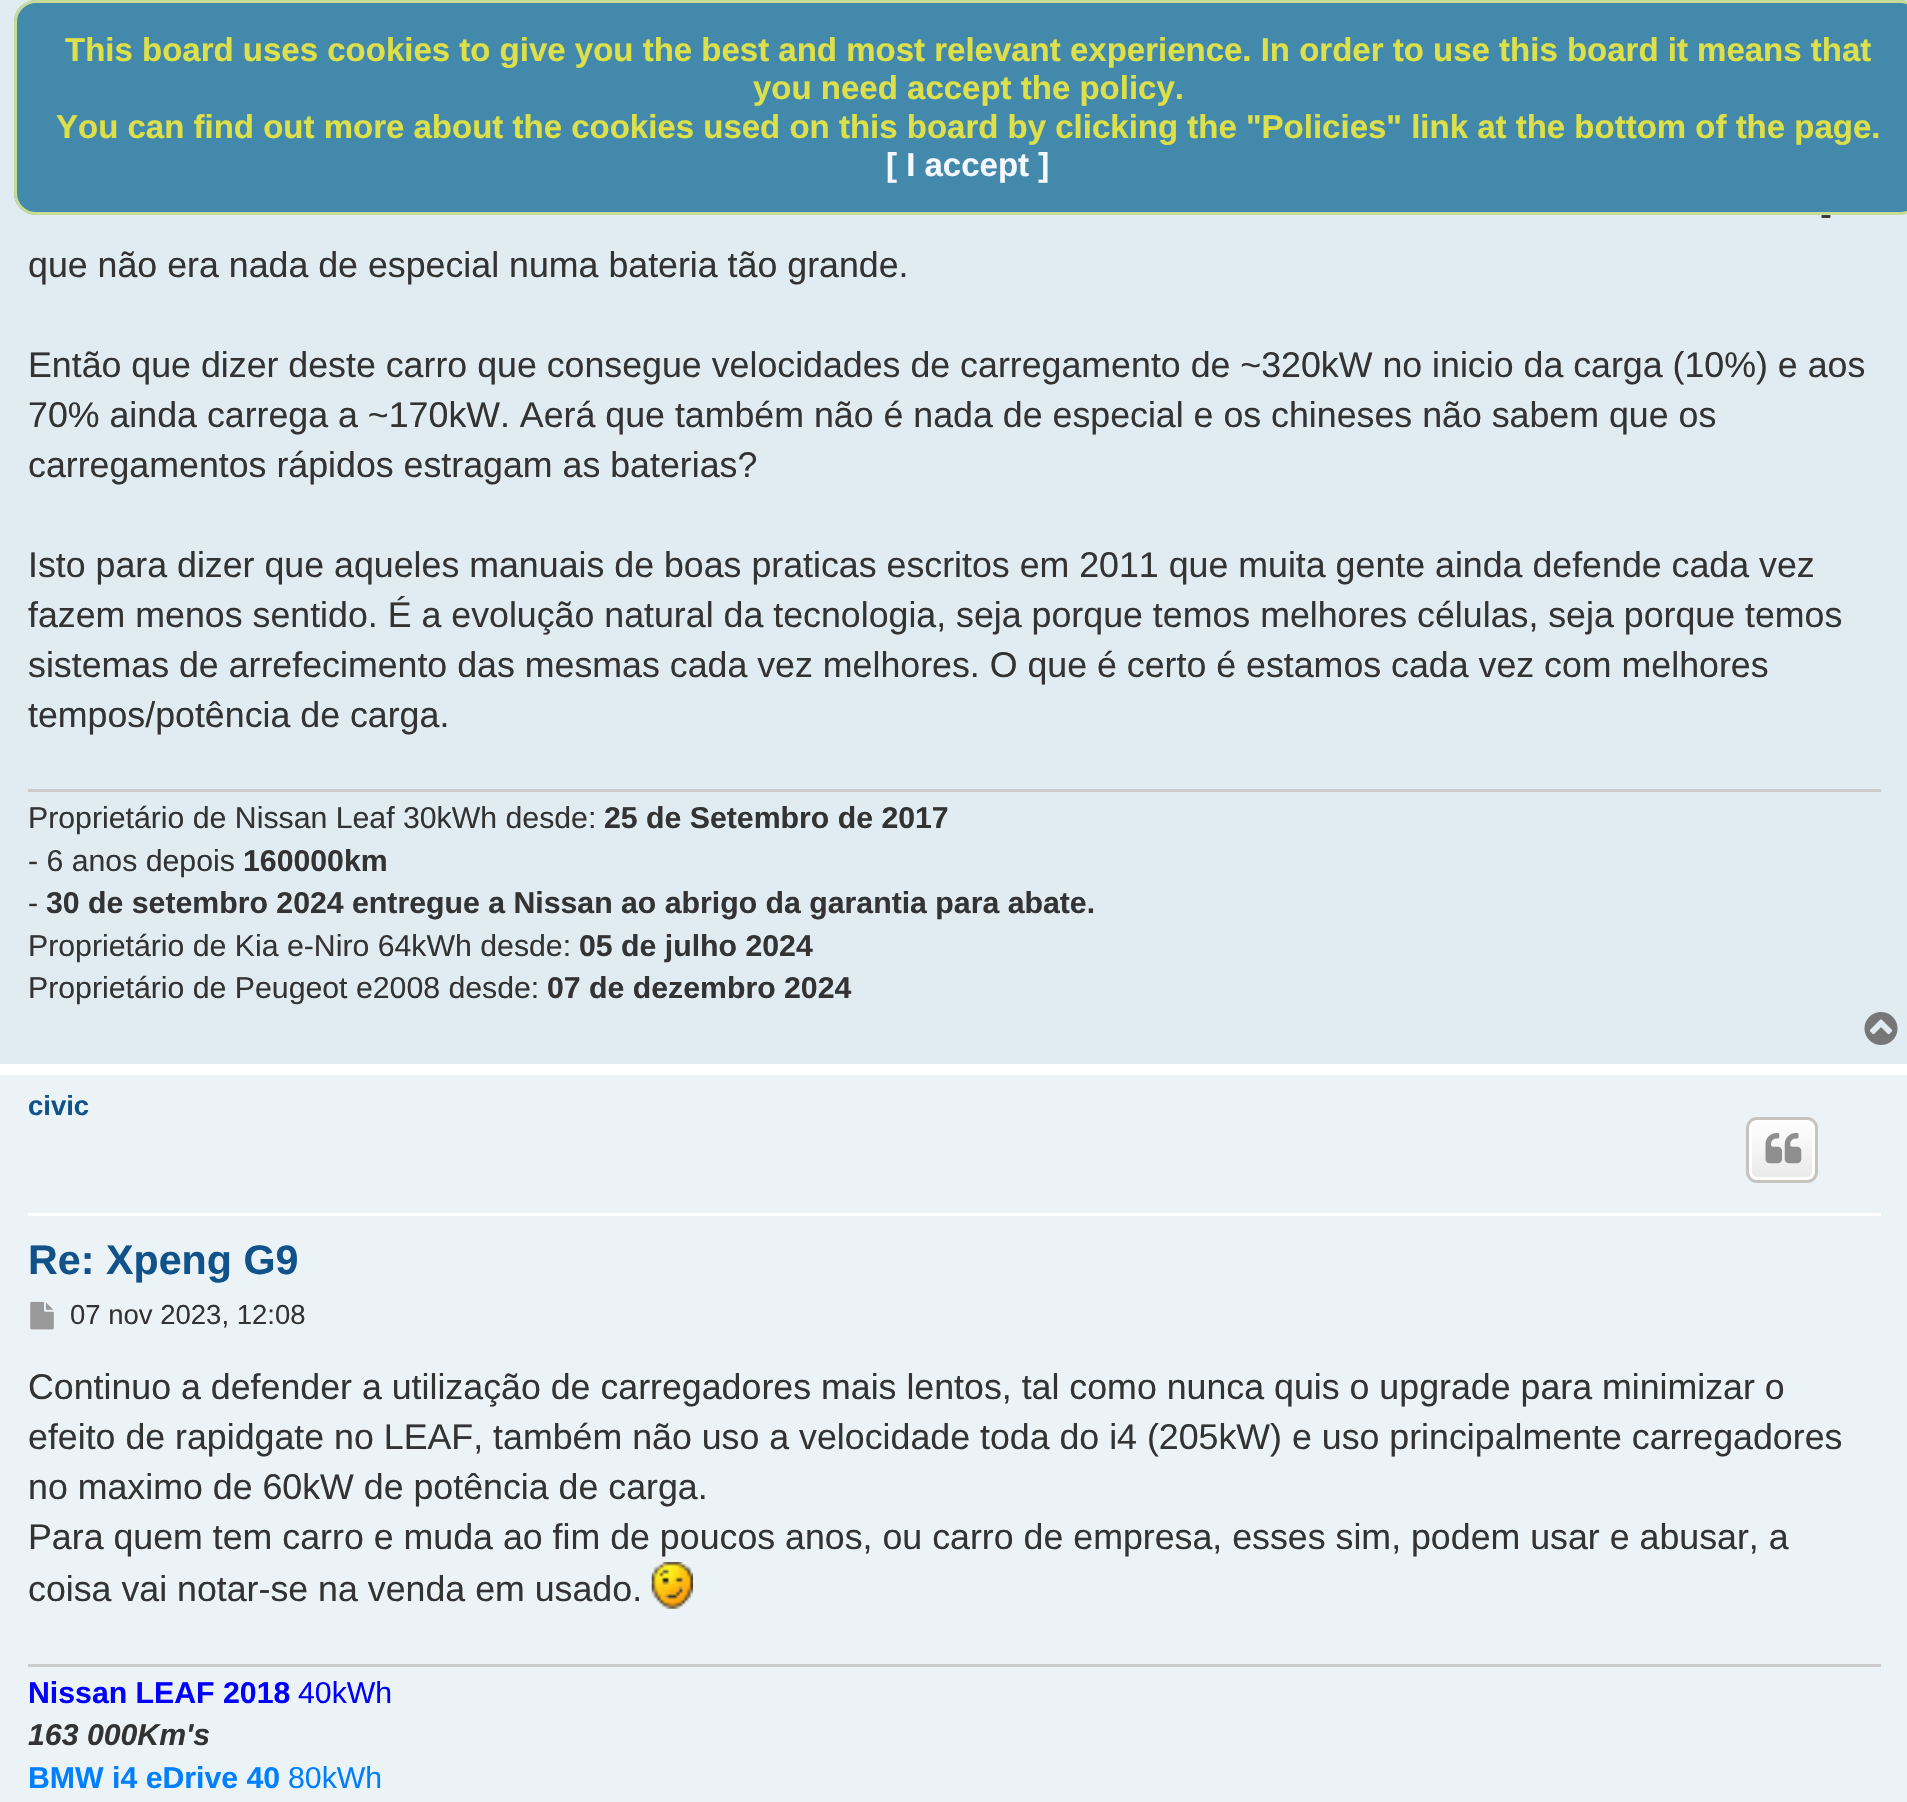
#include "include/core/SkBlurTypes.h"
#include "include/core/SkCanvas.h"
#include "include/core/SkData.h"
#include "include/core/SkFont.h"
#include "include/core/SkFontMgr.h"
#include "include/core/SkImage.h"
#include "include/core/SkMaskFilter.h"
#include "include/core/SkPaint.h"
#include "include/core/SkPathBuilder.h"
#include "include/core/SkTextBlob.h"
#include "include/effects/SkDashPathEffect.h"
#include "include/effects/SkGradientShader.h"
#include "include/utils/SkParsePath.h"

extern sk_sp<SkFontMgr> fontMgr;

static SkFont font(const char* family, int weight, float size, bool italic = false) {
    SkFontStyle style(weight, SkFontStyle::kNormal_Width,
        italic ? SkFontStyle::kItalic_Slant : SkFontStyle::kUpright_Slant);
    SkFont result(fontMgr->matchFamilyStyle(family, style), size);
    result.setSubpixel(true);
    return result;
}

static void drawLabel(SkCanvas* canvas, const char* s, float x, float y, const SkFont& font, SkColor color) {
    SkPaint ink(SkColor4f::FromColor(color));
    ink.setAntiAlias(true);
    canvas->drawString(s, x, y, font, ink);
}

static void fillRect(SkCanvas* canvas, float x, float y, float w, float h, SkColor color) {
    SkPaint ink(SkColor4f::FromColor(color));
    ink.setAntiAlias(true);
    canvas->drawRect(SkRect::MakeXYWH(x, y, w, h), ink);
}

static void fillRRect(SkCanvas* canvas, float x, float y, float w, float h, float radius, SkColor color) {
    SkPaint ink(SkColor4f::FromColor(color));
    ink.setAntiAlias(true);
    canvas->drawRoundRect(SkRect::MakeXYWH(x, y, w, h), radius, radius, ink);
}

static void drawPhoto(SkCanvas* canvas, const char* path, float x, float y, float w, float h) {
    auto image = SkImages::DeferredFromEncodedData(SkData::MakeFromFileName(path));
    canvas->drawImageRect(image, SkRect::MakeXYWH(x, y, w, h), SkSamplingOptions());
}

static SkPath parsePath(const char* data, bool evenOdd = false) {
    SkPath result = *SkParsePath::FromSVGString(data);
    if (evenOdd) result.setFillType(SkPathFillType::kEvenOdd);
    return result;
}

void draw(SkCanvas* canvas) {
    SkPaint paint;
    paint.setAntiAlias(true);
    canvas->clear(0xFFFFFFFF);
    fillRect(canvas, 0, 0, 1907, 1064, 0xFFE1EBF2);
    fillRRect(canvas, 14, 0, 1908, 215, 22, 0xB300608F);
    paint.setStroke(true);
    paint.setStrokeWidth(3);
    paint.setColor(0xB3FFFF8A);
    canvas->drawRoundRect(SkRect::MakeXYWH(15.5f, 1.5f, 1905, 212), 20.5f, 20.5f, paint);
    SkFont font1 = font("Liberation Sans", 700, 33);
    drawLabel(canvas, "This board uses cookies to give you the best and most relevant experience. In order to use this board it means that", 65, 61, font1, 0xFFDDE049);
    drawLabel(canvas, "you need accept the policy.", 753, 99, font1, 0xFFDDE049);
    drawLabel(canvas, "You can find out more about the cookies used on this board by clicking the \"Policies\" link at the bottom of the page.", 56, 138, font1, 0xFFDDE049);
    drawLabel(canvas, "[ I accept ]", 886, 176, font1, 0xFFF6F9FB);
    SkFont font2 = font("Liberation Sans", 400, 35.75f);
    drawLabel(canvas, "-", 1820, 226, font2, 0xFF333333);
    drawLabel(canvas, "que não era nada de especial numa bateria tão grande.", 28, 277, font2, 0xFF333333);
    drawLabel(canvas, "Então que dizer deste carro que consegue velocidades de carregamento de ~320kW no inicio da carga (10%) e aos", 28, 377, font2, 0xFF333333);
    drawLabel(canvas, "70% ainda carrega a ~170kW. Aerá que também não é nada de especial e os chineses não sabem que os", 28, 427, font2, 0xFF333333);
    drawLabel(canvas, "carregamentos rápidos estragam as baterias?", 28, 477, font2, 0xFF333333);
    drawLabel(canvas, "Isto para dizer que aqueles manuais de boas praticas escritos em 2011 que muita gente ainda defende cada vez", 28, 577, font2, 0xFF333333);
    drawLabel(canvas, "fazem menos sentido. É a evolução natural da tecnologia, seja porque temos melhores células, seja porque temos", 28, 627, font2, 0xFF333333);
    drawLabel(canvas, "sistemas de arrefecimento das mesmas cada vez melhores. O que é certo é estamos cada vez com melhores", 28, 677, font2, 0xFF333333);
    drawLabel(canvas, "tempos/potência de carga.", 28, 727, font2, 0xFF333333);
    fillRect(canvas, 28, 789, 1853, 3, 0xFFCCCCCC);
    SkFont font3 = font("Liberation Sans", 400, 30.25f);
    drawLabel(canvas, "Proprietário de Nissan Leaf 30kWh desde:", 28, 828, font3, 0xFF333333);
    SkFont font4 = font("Liberation Sans", 700, 30.25f);
    drawLabel(canvas, "25 de Setembro de 2017", 604, 828, font4, 0xFF333333);
    drawLabel(canvas, "- 6 anos depois", 28, 871, font3, 0xFF333333);
    drawLabel(canvas, "160000km", 243, 871, font4, 0xFF333333);
    drawLabel(canvas, "-", 28, 913, font3, 0xFF333333);
    drawLabel(canvas, "30 de setembro 2024 entregue a Nissan ao abrigo da garantia para abate.", 46, 913, font4, 0xFF333333);
    drawLabel(canvas, "Proprietário de Kia e-Niro 64kWh desde:", 28, 956, font3, 0xFF333333);
    drawLabel(canvas, "05 de julho 2024", 579, 956, font4, 0xFF333333);
    drawLabel(canvas, "Proprietário de Peugeot e2008 desde:", 28, 998, font3, 0xFF333333);
    drawLabel(canvas, "07 de dezembro 2024", 547, 998, font4, 0xFF333333);
    drawPhoto(canvas, "assets/img1.png", 1864, 1012, 34, 33);
    fillRect(canvas, 0, 1075, 1907, 727, 0xFFECF3F7);
    fillRect(canvas, 28, 1213, 1853, 3, 0xFFFFFFFF);
    SkFont font5 = font("Liberation Sans", 700, 27.5f);
    drawLabel(canvas, "civic", 28, 1115, font5, 0xFF105289);
    canvas->save();
    canvas->clipPath(parsePath("M1757 1117H1807C1813 1117 1818 1122 1818 1128V1172C1818 1178 1813 1183 1807 1183H1757C1751 1183 1746 1178 1746 1172V1128C1746 1122 1751 1117 1757 1117Z"), true);
    paint.setStroke(false);
    {
        const SkColor colors[] = {0xFFFFFFFF, 0xFFE9E9E9};
        const float stops[] = {0, 1};
        const SkPoint ends[] = {{1782, 1119}, {1782, 1180}};
        paint.setShader(SkGradientShader::MakeLinear(ends, colors, stops, 2, SkTileMode::kClamp));
        paint.setAlpha(255);
    }
    canvas->drawRect(SkRect::MakeXYWH(1746, 1119, 72, 61), paint);
    canvas->restore();
    paint.setStroke(true);
    paint.setShader(nullptr);
    paint.setColor(0xFFFFFFFF);
    canvas->drawRoundRect(SkRect::MakeXYWH(1750.5f, 1120.5f, 63, 58), 6.5f, 6.5f, paint);
    paint.setColor(0xFFC7C3BF);
    canvas->drawRoundRect(SkRect::MakeXYWH(1747.5f, 1118.5f, 69, 63), 9.5f, 9.5f, paint);
    drawPhoto(canvas, "assets/img2.png", 1765, 1133, 37, 31);
    SkFont font6 = font("Liberation Sans", 700, 41.25f);
    drawLabel(canvas, "Re: Xpeng G9", 28, 1274, font6, 0xFF105289);
    drawPhoto(canvas, "assets/img3.png", 30, 1301, 24, 29);
    SkFont font7 = font("Liberation Sans", 400, 27.5f);
    drawLabel(canvas, "07 nov 2023, 12:08", 70, 1324, font7, 0xFF333333);
    drawLabel(canvas, "Continuo a defender a utilização de carregadores mais lentos, tal como nunca quis o upgrade para minimizar o", 28, 1399, font2, 0xFF333333);
    drawLabel(canvas, "efeito de rapidgate no LEAF, também não uso a velocidade toda do i4 (205kW) e uso principalmente carregadores", 28, 1449, font2, 0xFF333333);
    drawLabel(canvas, "no maximo de 60kW de potência de carga.", 28, 1499, font2, 0xFF333333);
    drawLabel(canvas, "Para quem tem carro e muda ao fim de poucos anos, ou carro de empresa, esses sim, podem usar e abusar, a", 28, 1549, font2, 0xFF333333);
    drawLabel(canvas, "coisa vai notar-se na venda em usado.", 28, 1601, font2, 0xFF333333);
    drawPhoto(canvas, "assets/img4.png", 651, 1562, 42, 47);
    fillRect(canvas, 28, 1664, 1853, 3, 0xFFCCCCCC);
    drawLabel(canvas, "Nissan LEAF 2018", 28, 1703, font4, 0xFF0000FF);
    drawLabel(canvas, "40kWh", 298, 1703, font3, 0xFF0000FF);
    SkFont font8 = font("Liberation Sans", 700, 30.25f, true);
    drawLabel(canvas, "163 000Km's", 28, 1745, font8, 0xFF333333);
    drawLabel(canvas, "BMW i4 eDrive 40", 28, 1788, font4, 0xFF0080FF);
    drawLabel(canvas, "80kWh", 288, 1788, font3, 0xFF0080FF);
}
